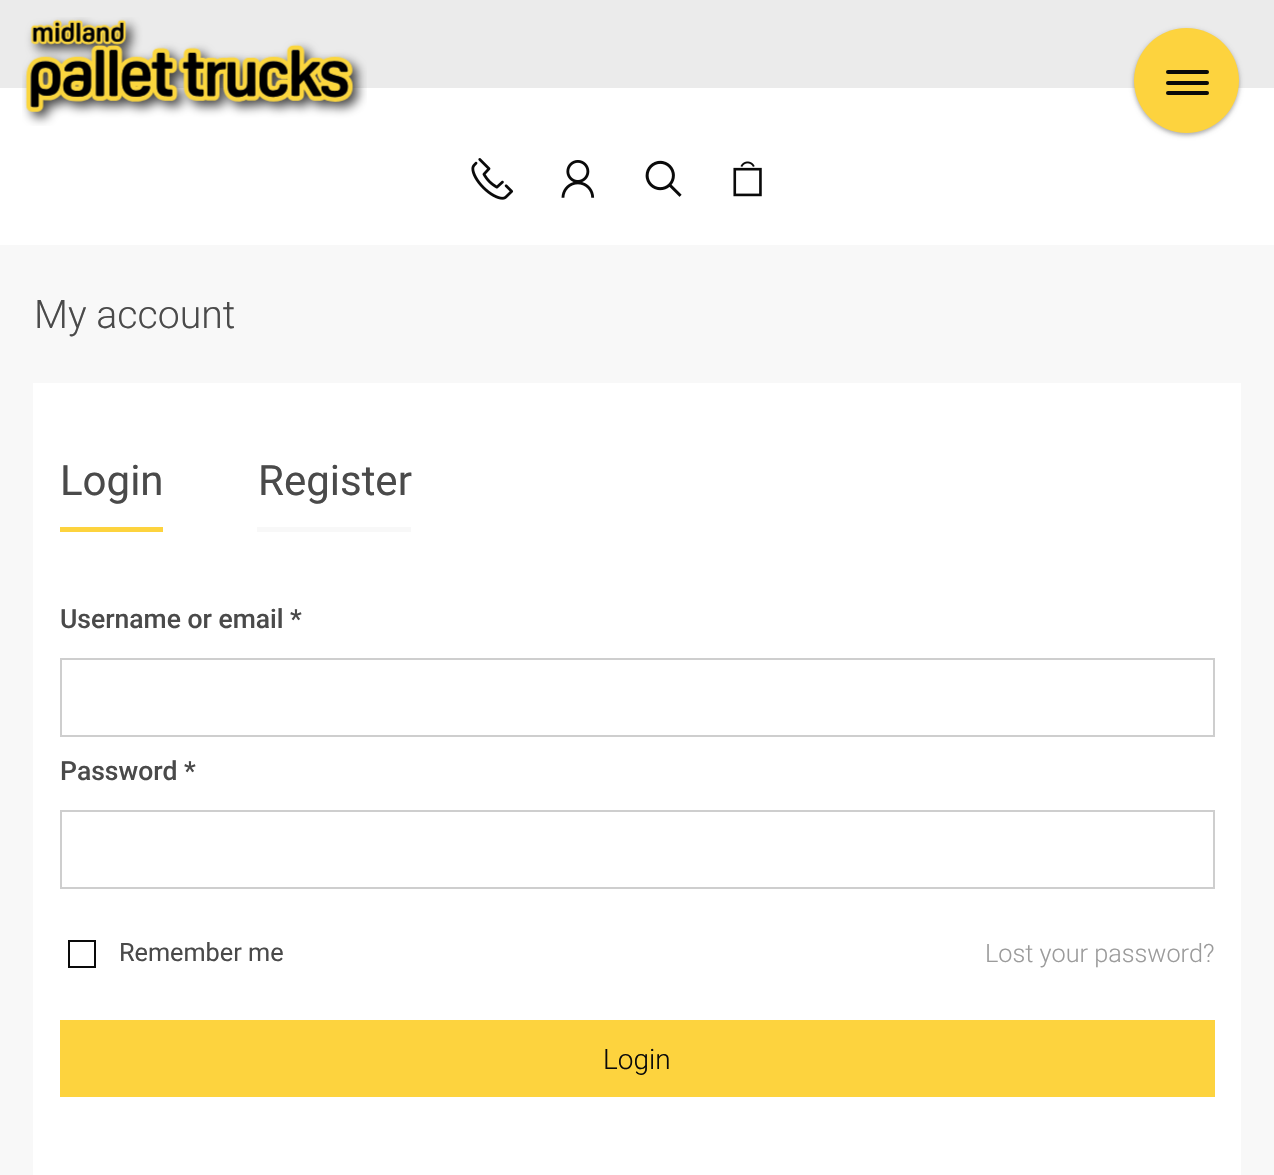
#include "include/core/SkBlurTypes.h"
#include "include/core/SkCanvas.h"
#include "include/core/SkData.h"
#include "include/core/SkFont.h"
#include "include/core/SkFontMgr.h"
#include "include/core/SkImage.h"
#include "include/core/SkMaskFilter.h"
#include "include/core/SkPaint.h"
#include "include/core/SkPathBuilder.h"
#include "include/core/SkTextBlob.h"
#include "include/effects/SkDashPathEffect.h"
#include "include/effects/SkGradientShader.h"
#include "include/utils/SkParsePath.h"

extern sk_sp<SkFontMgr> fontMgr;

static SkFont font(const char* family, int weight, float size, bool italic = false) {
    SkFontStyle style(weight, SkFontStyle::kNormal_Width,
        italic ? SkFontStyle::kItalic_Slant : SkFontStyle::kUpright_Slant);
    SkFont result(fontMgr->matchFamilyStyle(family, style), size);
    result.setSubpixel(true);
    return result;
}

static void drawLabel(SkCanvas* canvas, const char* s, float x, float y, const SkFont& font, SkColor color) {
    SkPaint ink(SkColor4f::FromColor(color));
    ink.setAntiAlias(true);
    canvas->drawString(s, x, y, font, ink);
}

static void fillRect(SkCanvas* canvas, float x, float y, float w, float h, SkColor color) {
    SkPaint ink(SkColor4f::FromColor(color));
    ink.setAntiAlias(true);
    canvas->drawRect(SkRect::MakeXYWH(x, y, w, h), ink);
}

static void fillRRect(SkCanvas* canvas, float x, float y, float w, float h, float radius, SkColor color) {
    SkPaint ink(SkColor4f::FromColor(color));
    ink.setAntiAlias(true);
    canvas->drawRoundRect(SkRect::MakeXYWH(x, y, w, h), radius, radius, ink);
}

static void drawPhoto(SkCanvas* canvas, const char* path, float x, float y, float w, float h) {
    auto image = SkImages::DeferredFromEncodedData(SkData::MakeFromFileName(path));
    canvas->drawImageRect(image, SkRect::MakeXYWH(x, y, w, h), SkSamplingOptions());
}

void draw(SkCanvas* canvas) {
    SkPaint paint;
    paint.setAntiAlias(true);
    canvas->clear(0xFFFFFFFF);
    fillRect(canvas, 0, 0, 1274, 88, 0xFFEBEBEB);
    drawPhoto(canvas, "assets/img1.png", 22, 17, 345, 109);
    paint.setColor(0x3D000000);
    paint.setMaskFilter(SkMaskFilter::MakeBlur(kNormal_SkBlurStyle, 2));
    canvas->drawRoundRect(SkRect::MakeXYWH(1134, 30, 105, 105), 52.5f, 52.5f, paint);
    paint.setMaskFilter(nullptr);
    paint.setColor(0x1F000000);
    paint.setMaskFilter(SkMaskFilter::MakeBlur(kNormal_SkBlurStyle, 2.5f));
    canvas->drawRoundRect(SkRect::MakeXYWH(1134, 30, 105, 105), 52.5f, 52.5f, paint);
    paint.setMaskFilter(nullptr);
    paint.setColor(0xFFFDD33E);
    canvas->drawCircle(1186.5f, 80.5f, 52.5f, paint);
    fillRRect(canvas, 1166, 70, 43, 4, 2, 0xFF0A0A0A);
    fillRRect(canvas, 1166, 81, 43, 4, 2, 0xFF0A0A0A);
    fillRRect(canvas, 1166, 91, 43, 4, 2, 0xFF0A0A0A);
    drawPhoto(canvas, "assets/img2.png", 471, 158, 43, 42);
    drawPhoto(canvas, "assets/img3.png", 561, 160, 34, 38);
    drawPhoto(canvas, "assets/img4.png", 645, 160, 37, 37);
    drawPhoto(canvas, "assets/img5.png", 733, 161, 29, 36);
    fillRect(canvas, 0, 245, 1274, 930, 0xFFF8F8F8);
    SkFont font1 = font("Roboto", 300, 39.25f);
    drawLabel(canvas, "My account", 34, 328, font1, 0xFF4A4A4A);
    fillRect(canvas, 33, 383, 1208, 792, 0xFFFFFFFF);
    fillRect(canvas, 60, 527, 103, 5, 0xFFFDD33E);
    SkFont font2 = font("Roboto", 400, 42);
    drawLabel(canvas, "Login", 60, 495, font2, 0xFF4A4A4A);
    fillRect(canvas, 257, 527, 154, 5, 0xFFF8F8F8);
    drawLabel(canvas, "Register", 258, 495, font2, 0xFF4A4A4A);
    SkFont font3 = font("Roboto", 500, 26.5f);
    drawLabel(canvas, "Username or email *", 60, 628, font3, 0xFF4A4A4A);
    paint.setStroke(true);
    paint.setStrokeWidth(2);
    paint.setColor(0xFFCECECE);
    canvas->drawRect(SkRect::MakeXYWH(61, 659, 1153, 77), paint);
    drawLabel(canvas, "Password *", 60, 780, font3, 0xFF4A4A4A);
    canvas->drawRect(SkRect::MakeXYWH(61, 811, 1153, 77), paint);
    paint.setColor(0xFF0A0A0A);
    canvas->drawRect(SkRect::MakeXYWH(69, 941, 26, 26), paint);
    SkFont font4 = font("Roboto", 400, 25.25f);
    drawLabel(canvas, "Remember me", 119, 961, font4, 0xFF4A4A4A);
    SkFont font5 = font("Roboto", 300, 25.25f);
    drawLabel(canvas, "Lost your password?", 985, 962, font5, 0xFF9B9B9B);
    fillRect(canvas, 60, 1020, 1155, 77, 0xFFFDD33E);
    SkFont font6 = font("Roboto", 300, 28);
    drawLabel(canvas, "Login", 603, 1069, font6, 0xFF0A0A0A);
}
